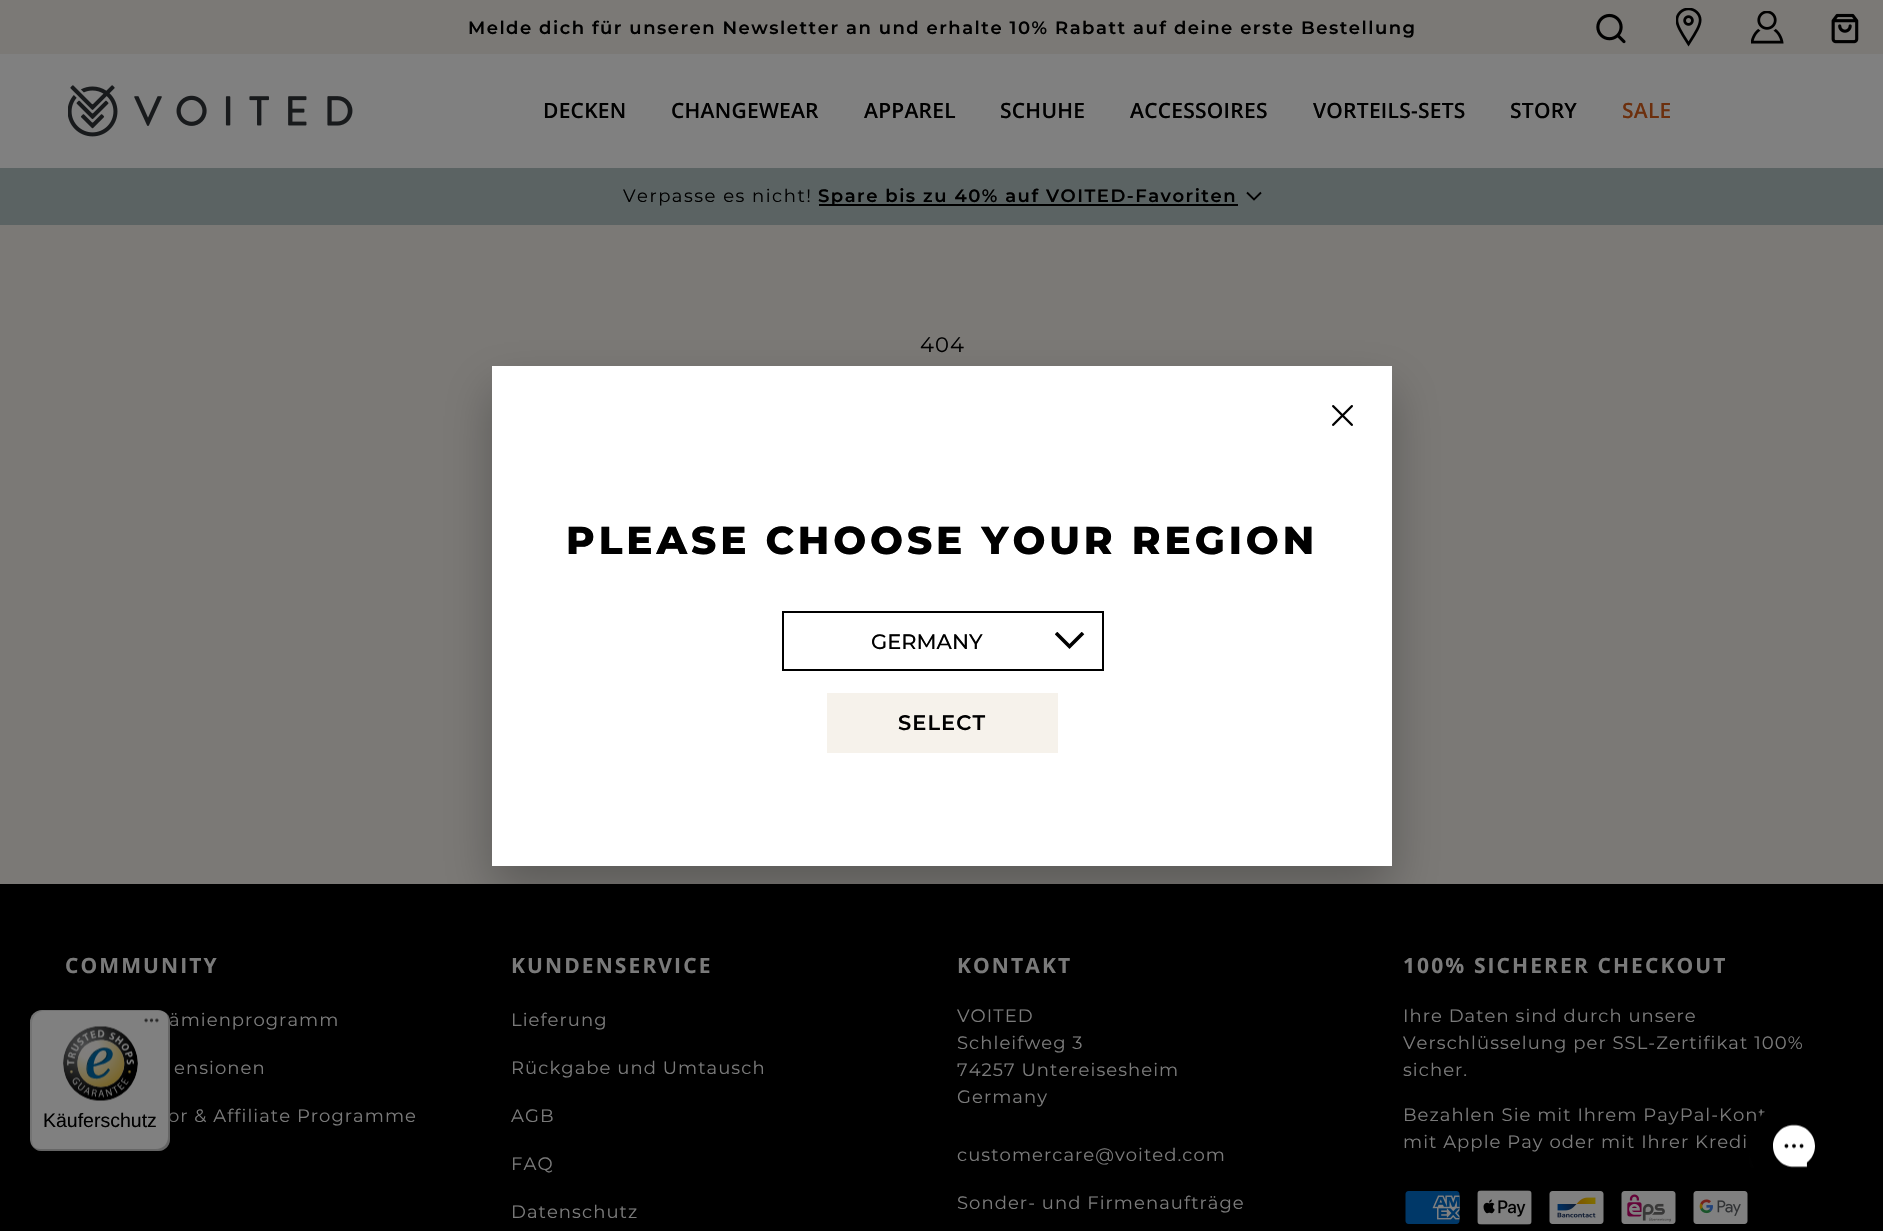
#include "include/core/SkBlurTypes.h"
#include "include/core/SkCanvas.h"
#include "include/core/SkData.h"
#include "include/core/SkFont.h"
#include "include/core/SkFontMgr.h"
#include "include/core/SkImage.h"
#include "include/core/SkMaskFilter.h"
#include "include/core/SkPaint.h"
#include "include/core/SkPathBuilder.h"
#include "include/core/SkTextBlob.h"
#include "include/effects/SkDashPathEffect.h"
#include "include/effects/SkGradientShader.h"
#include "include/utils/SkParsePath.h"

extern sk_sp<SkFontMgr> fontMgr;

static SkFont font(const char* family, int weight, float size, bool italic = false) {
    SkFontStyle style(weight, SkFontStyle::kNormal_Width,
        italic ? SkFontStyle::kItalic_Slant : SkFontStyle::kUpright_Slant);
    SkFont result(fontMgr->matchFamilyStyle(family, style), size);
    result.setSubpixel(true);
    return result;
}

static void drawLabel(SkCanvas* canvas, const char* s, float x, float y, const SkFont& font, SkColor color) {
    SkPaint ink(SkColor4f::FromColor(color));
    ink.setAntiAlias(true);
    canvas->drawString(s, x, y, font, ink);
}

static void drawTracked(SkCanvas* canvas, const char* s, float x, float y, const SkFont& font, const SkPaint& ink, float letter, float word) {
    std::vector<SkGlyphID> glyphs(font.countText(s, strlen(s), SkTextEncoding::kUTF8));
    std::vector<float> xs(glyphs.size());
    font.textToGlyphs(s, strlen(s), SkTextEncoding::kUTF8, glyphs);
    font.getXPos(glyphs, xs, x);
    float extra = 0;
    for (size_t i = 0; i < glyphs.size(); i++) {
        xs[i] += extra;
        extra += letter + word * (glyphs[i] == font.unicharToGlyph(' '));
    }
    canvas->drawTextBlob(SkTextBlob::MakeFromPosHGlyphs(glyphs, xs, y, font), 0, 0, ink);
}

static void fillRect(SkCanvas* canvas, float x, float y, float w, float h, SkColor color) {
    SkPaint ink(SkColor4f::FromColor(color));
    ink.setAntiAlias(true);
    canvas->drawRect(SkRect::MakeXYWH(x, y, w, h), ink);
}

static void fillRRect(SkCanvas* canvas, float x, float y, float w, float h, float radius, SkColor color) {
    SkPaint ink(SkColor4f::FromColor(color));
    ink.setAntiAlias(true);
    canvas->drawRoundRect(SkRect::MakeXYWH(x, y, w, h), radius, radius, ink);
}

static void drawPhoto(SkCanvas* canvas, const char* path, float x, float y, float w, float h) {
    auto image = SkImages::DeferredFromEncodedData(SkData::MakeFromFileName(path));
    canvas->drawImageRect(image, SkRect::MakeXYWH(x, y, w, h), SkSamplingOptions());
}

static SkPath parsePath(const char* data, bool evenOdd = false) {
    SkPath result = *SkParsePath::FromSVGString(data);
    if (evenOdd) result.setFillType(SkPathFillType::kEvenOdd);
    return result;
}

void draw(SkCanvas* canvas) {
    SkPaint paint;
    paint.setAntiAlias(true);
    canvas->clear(0xFF7B7976);
    SkFont font1 = font("Montserrat", 600, 18);
    paint.setColor(0xFF000000);
    drawTracked(canvas, "Melde dich für unseren Newsletter an und erhalte 10% Rabatt auf deine erste Bestellung", 468, 34, font1, paint, 1.5f, 0);
    drawPhoto(canvas, "assets/img1.png", 1596, 13, 30, 31);
    drawPhoto(canvas, "assets/img2.png", 1676, 8, 26, 39);
    drawPhoto(canvas, "assets/img3.png", 1751, 11, 33, 33);
    drawPhoto(canvas, "assets/img4.png", 1831, 13, 28, 31);
    fillRect(canvas, 0, 54, 1883, 114, 0xFF808080);
    drawPhoto(canvas, "assets/img5.png", 68, 85, 285, 52);
    SkFont font2 = font("Open Sans", 600, 21);
    drawTracked(canvas, "DECKEN", 543, 118, font2, paint, 0.25f, 0);
    drawTracked(canvas, "CHANGEWEAR", 671, 118, font2, paint, 0.25f, 0);
    drawTracked(canvas, "APPAREL", 864, 118, font2, paint, 0.25f, 0);
    drawTracked(canvas, "SCHUHE", 1000, 118, font2, paint, 0.25f, 0);
    drawTracked(canvas, "ACCESSOIRES", 1130, 118, font2, paint, 0.25f, 0);
    drawTracked(canvas, "VORTEILS-SETS", 1313, 118, font2, paint, 0.25f, 0);
    drawTracked(canvas, "STORY", 1510, 118, font2, paint, 0.25f, 0);
    paint.setColor(0xFF6C2F0D);
    drawTracked(canvas, "SALE", 1622, 118, font2, paint, 0.25f, 0);
    fillRect(canvas, 0, 168, 1883, 57, 0xFF5B6363);
    SkFont font3 = font("Montserrat", 400, 18);
    paint.setColor(0xFF000000);
    drawTracked(canvas, "Verpasse es nicht!", 623, 202, font3, paint, 1.5f, 0);
    fillRect(canvas, 819, 204, 419, 2, 0xFF000000);
    drawTracked(canvas, "Spare bis zu 40% auf VOITED-Favoriten", 818, 202, font1, paint, 1.5f, 0);
    paint.setStroke(true);
    paint.setStrokeWidth(1.9f);
    canvas->drawPath(parsePath("M1261 192.5L1254 199.5L1247 192.5"), paint);
    SkFont font4 = font("Montserrat", 400, 21);
    paint.setStroke(false);
    drawTracked(canvas, "404", 920, 352, font4, paint, 1.05f, 0);
    fillRect(canvas, 0, 884, 1883, 347, 0xFF000000);
    paint.setColor(0x42000000);
    paint.setMaskFilter(SkMaskFilter::MakeBlur(kNormal_SkBlurStyle, 22.5f));
    canvas->drawRect(SkRect::MakeXYWH(492, 389, 900, 499), paint);
    paint.setMaskFilter(nullptr);
    fillRect(canvas, 492, 366, 900, 500, 0xFFFFFFFF);
    drawPhoto(canvas, "assets/img6.png", 1332, 405, 21, 21);
    SkFont font5 = font("Montserrat", 800, 39);
    paint.setColor(0xFF000000);
    drawTracked(canvas, "PLEASE CHOOSE YOUR REGION", 566, 554, font5, paint, 3.9f, 0);
    canvas->save();
    canvas->clipRect(SkRect::MakeXYWH(1055, 632, 30, 18));
    paint.setStroke(true);
    paint.setStrokeWidth(3.6f);
    canvas->drawPath(parsePath("M1083 633L1069.5 646.5L1056 633"), paint);
    canvas->restore();
    paint.setStrokeWidth(2);
    canvas->drawRect(SkRect::MakeXYWH(783, 612, 320, 58), paint);
    SkFont font6 = font("Montserrat", 500, 21);
    drawLabel(canvas, "GERMANY", 871, 649, font6, 0xFF000000);
    fillRect(canvas, 827, 693, 231, 60, 0xFFF6F2EB);
    SkFont font7 = font("Montserrat", 600, 21);
    paint.setStroke(false);
    drawTracked(canvas, "SELECT", 898, 730, font7, paint, 1.05f, 0);
    SkFont font8 = font("Open Sans", 700, 21);
    paint.setColor(0xFF7A7A7A);
    drawTracked(canvas, "COMMUNITY", 65, 973, font8, paint, 2.1f, 0);
    drawTracked(canvas, "ämienprogramm", 169, 1026, font3, paint, 1.05f, 0);
    drawTracked(canvas, "ensionen", 174, 1074, font3, paint, 1.05f, 0);
    drawTracked(canvas, "or & Affiliate Programme", 168, 1122, font3, paint, 1.05f, 0);
    drawTracked(canvas, "KUNDENSERVICE", 511, 973, font8, paint, 2.1f, 0);
    drawTracked(canvas, "Lieferung", 511, 1026, font3, paint, 1.05f, 0);
    drawTracked(canvas, "Rückgabe und Umtausch", 511, 1074, font3, paint, 1.05f, 0);
    drawTracked(canvas, "AGB", 511, 1122, font3, paint, 1.05f, 0);
    drawTracked(canvas, "FAQ", 511, 1170, font3, paint, 1.05f, 0);
    drawTracked(canvas, "Datenschutz", 511, 1218, font3, paint, 1.05f, 0);
    drawTracked(canvas, "KONTAKT", 957, 973, font8, paint, 2.1f, 0);
    drawTracked(canvas, "VOITED", 957, 1022, font3, paint, 1.05f, 0);
    drawTracked(canvas, "Schleifweg 3", 957, 1049, font3, paint, 1.05f, 0);
    drawTracked(canvas, "74257 Untereisesheim", 957, 1076, font3, paint, 1.05f, 0);
    drawTracked(canvas, "Germany", 957, 1103, font3, paint, 1.05f, 0);
    drawTracked(canvas, "customercare@voited.com", 957, 1161, font3, paint, 1.05f, 0);
    drawTracked(canvas, "Sonder- und Firmenaufträge", 957, 1209, font3, paint, 1.05f, 0);
    drawTracked(canvas, "100% SICHERER CHECKOUT", 1403, 973, font8, paint, 2.1f, 0);
    drawTracked(canvas, "Ihre Daten sind durch unsere", 1403, 1022, font3, paint, 1.05f, 0);
    drawTracked(canvas, "Verschlüsselung per SSL-Zertifikat 100%", 1403, 1049, font3, paint, 1.05f, 0);
    drawTracked(canvas, "sicher.", 1403, 1076, font3, paint, 1.05f, 0);
    drawTracked(canvas, "Bezahlen Sie mit Ihrem PayPal-Kont", 1403, 1121, font3, paint, 1.05f, 0);
    drawTracked(canvas, "mit Apple Pay oder mit Ihrer Kredi", 1403, 1148, font3, paint, 1.05f, 0);
    drawPhoto(canvas, "assets/img7.png", 1405, 1191, 55, 33);
    drawPhoto(canvas, "assets/img8.png", 1477, 1190, 55, 35);
    drawPhoto(canvas, "assets/img9.png", 1549, 1191, 55, 33);
    drawPhoto(canvas, "assets/img10.png", 1621, 1191, 55, 33);
    drawPhoto(canvas, "assets/img11.png", 1693, 1191, 55, 33);
    paint.setColor(0x26000000);
    paint.setMaskFilter(SkMaskFilter::MakeBlur(kNormal_SkBlurStyle, 6));
    canvas->drawRoundRect(SkRect::MakeXYWH(35, 1014, 139, 141), 12, 12, paint);
    paint.setMaskFilter(nullptr);
    paint.setMaskFilter(SkMaskFilter::MakeBlur(kNormal_SkBlurStyle, 1.5f));
    canvas->drawRoundRect(SkRect::MakeXYWH(32, 1011, 139, 141), 12, 12, paint);
    paint.setMaskFilter(nullptr);
    fillRRect(canvas, 30, 1010, 140, 141, 12, 0xFF808080);
    paint.setColor(0x1A000000);
    canvas->drawPath(parsePath("M44 1011H159C162 1011 164 1012 166 1013C164 1011 161 1010 158 1010H42C35 1010 30 1015 30 1022V1139C30 1144 33 1148 37 1150C34 1148 32 1144 32 1140V1023C32 1016 37 1011 44 1011Z"), paint);
    paint.setColor(0x33000000);
    canvas->drawPath(parsePath("M32 1146C35 1149 38 1151 42 1151H158C165 1151 170 1146 170 1139V1022C170 1018 168 1015 166 1013C167 1015 168 1017 168 1020V1137C168 1144 163 1149 156 1149H40C37 1149 35 1148 32 1146Z"), paint);
    paint.setColor(0x33191919);
    canvas->drawPath(parsePath("M33 1147C35 1149 38 1151 42 1151H158C165 1151 170 1146 170 1139V1022C170 1018 168 1015 166 1013C168 1015 169 1018 169 1021V1138C169 1144 163 1150 157 1150H41C38 1150 35 1149 33 1147Z"), paint);
    paint.setColor(0x4D808080);
    canvas->drawPath(parsePath("M32 1145C34 1149 37 1151 42 1151H158C165 1151 170 1146 170 1139V1022C170 1018 168 1015 166 1013C168 1015 169 1018 169 1021V1138C169 1144 163 1150 157 1150H41C37 1150 34 1148 32 1145Z"), paint);
    drawPhoto(canvas, "assets/img12.png", 144, 1018, 15, 5);
    drawPhoto(canvas, "assets/img13.png", 63, 1026, 75, 75);
    SkFont font9 = font("Liberation Sans", 400, 19.5f);
    drawLabel(canvas, "Käuferschutz", 43, 1127, font9, 0xFF000000);
    drawPhoto(canvas, "assets/img14.png", 1749, 1111, 66, 57);
}
